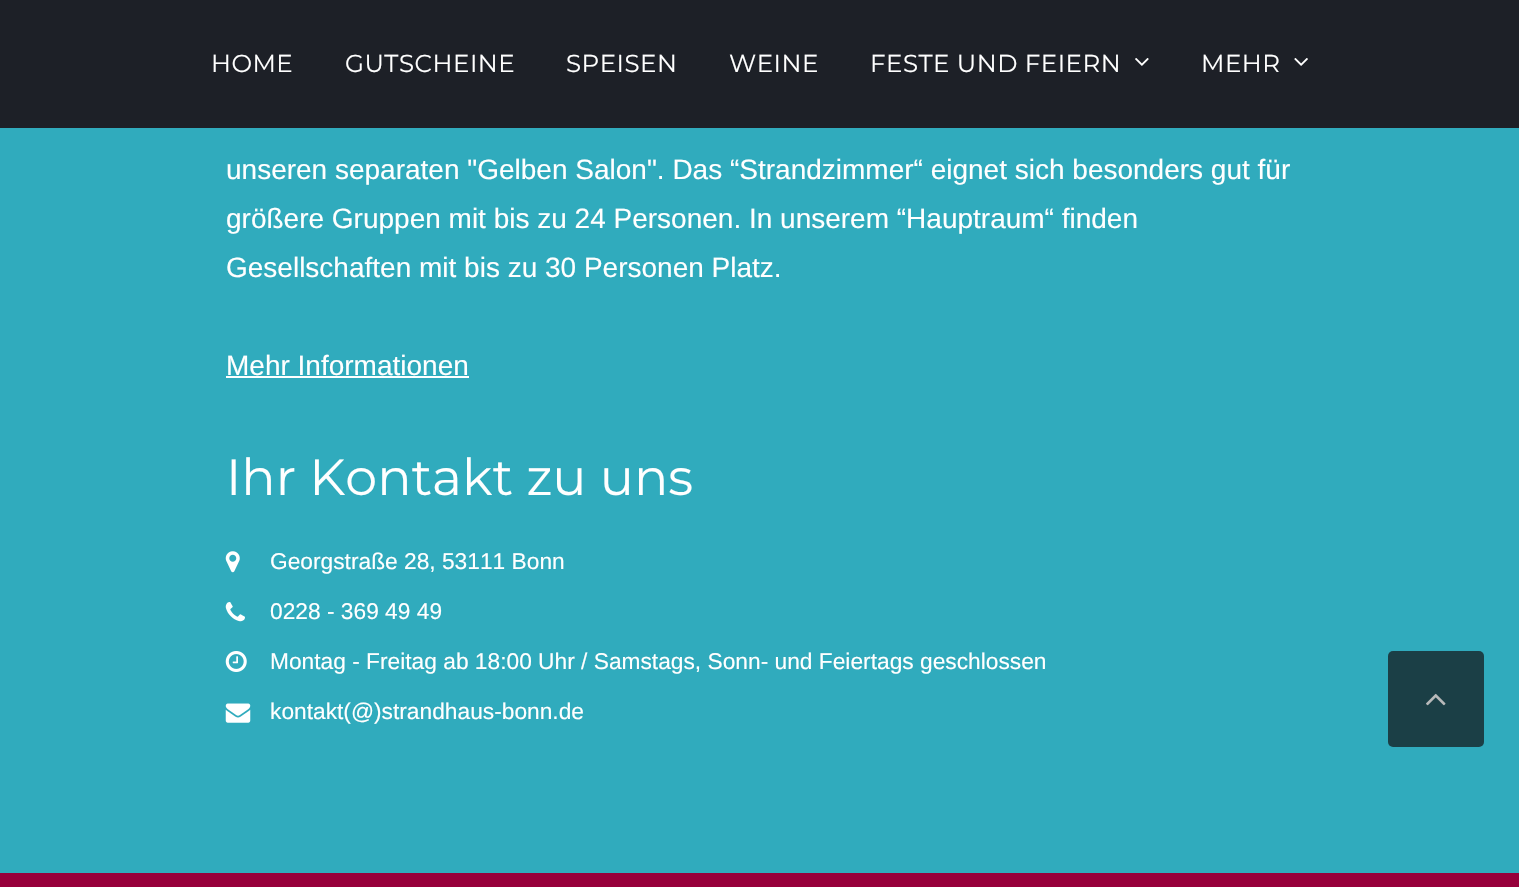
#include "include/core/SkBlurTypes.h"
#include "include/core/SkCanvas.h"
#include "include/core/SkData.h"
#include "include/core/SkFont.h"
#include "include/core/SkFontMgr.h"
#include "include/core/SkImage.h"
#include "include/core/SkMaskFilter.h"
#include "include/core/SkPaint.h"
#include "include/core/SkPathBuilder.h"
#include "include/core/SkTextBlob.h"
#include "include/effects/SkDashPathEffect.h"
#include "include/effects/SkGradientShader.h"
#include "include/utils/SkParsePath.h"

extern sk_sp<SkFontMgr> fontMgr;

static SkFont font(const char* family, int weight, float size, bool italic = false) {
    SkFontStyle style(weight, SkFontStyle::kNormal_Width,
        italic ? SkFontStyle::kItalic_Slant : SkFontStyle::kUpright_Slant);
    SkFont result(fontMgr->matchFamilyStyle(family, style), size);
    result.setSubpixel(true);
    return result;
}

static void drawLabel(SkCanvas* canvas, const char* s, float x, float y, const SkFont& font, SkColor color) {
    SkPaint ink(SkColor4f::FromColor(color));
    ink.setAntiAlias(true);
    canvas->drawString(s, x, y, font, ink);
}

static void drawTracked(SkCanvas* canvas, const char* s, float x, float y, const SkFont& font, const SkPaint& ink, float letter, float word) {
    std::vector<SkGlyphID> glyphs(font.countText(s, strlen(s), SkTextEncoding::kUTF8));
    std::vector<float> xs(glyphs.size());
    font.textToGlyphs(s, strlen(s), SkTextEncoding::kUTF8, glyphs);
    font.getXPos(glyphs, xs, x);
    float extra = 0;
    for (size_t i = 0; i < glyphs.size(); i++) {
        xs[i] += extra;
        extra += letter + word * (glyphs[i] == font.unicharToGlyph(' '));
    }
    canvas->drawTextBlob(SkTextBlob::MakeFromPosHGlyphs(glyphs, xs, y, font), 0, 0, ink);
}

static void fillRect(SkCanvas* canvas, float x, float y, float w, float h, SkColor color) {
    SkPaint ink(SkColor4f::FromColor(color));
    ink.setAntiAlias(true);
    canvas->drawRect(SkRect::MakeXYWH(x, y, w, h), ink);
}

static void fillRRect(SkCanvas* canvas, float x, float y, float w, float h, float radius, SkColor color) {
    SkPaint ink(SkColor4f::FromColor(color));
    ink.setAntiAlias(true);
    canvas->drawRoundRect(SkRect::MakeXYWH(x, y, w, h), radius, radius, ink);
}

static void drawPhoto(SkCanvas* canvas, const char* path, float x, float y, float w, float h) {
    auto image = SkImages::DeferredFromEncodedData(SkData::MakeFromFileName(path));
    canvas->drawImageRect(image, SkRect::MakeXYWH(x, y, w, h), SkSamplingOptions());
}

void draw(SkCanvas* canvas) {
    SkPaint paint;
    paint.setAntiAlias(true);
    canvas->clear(0xFF30ABBD);
    fillRect(canvas, 0, 0, 1519, 128, 0xFF1D2027);
    SkFont font1 = font("Montserrat", 100, 24.5f);
    paint.setColor(0xFFFFFFFF);
    drawTracked(canvas, "HOME", 211, 72, font1, paint, 0.5f, 0);
    drawTracked(canvas, "GUTSCHEINE", 345, 72, font1, paint, 0.5f, 0);
    drawTracked(canvas, "SPEISEN", 566, 72, font1, paint, 0.5f, 0);
    drawTracked(canvas, "WEINE", 729, 72, font1, paint, 0.5f, 0);
    drawTracked(canvas, "FESTE UND FEIERN", 870, 72, font1, paint, 0.5f, 0);
    drawPhoto(canvas, "assets/img1.png", 1135, 58, 14, 8);
    drawTracked(canvas, "MEHR", 1201, 72, font1, paint, 0.5f, 0);
    drawPhoto(canvas, "assets/img2.png", 1294, 58, 14, 8);
    SkFont font2 = font("Liberation Sans", 400, 28);
    drawLabel(canvas, "unseren separaten \"Gelben Salon\". Das “Strandzimmer“ eignet sich besonders gut für", 226, 179, font2, 0xFFFFFFFF);
    drawLabel(canvas, "größere Gruppen mit bis zu 24 Personen. In unserem “Hauptraum“ finden", 226, 228, font2, 0xFFFFFFFF);
    drawLabel(canvas, "Gesellschaften mit bis zu 30 Personen Platz.", 226, 277, font2, 0xFFFFFFFF);
    drawLabel(canvas, "Mehr Informationen", 226, 375, font2, 0xFFFFFFFF);
    fillRect(canvas, 226, 376, 243, 2, 0xFFFFFFFF);
    SkFont font3 = font("Montserrat", 100, 50.75f);
    drawLabel(canvas, "Ihr Kontakt zu uns", 226, 495, font3, 0xFFFFFFFF);
    drawPhoto(canvas, "assets/img3.png", 225, 551, 15, 22);
    SkFont font4 = font("Liberation Sans", 400, 22.75f);
    drawLabel(canvas, "Georgstraße 28, 53111 Bonn", 270, 569, font4, 0xFFFFFFFF);
    drawPhoto(canvas, "assets/img4.png", 225, 602, 20, 20);
    drawLabel(canvas, "0228 - 369 49 49", 270, 619, font4, 0xFFFFFFFF);
    drawPhoto(canvas, "assets/img5.png", 225, 651, 22, 21);
    drawLabel(canvas, "Montag - Freitag ab 18:00 Uhr / Samstags, Sonn- und Feiertags geschlossen", 270, 669, font4, 0xFFFFFFFF);
    drawPhoto(canvas, "assets/img6.png", 225, 703, 26, 20);
    drawLabel(canvas, "kontakt(@)strandhaus-bonn.de", 270, 719, font4, 0xFFFFFFFF);
    fillRect(canvas, 0, 873, 1519, 14, 0xFF97003B);
    fillRRect(canvas, 1388, 651, 96, 96, 5, 0xFF1B3F46);
    drawPhoto(canvas, "assets/img7.png", 1426, 693, 20, 13);
}
